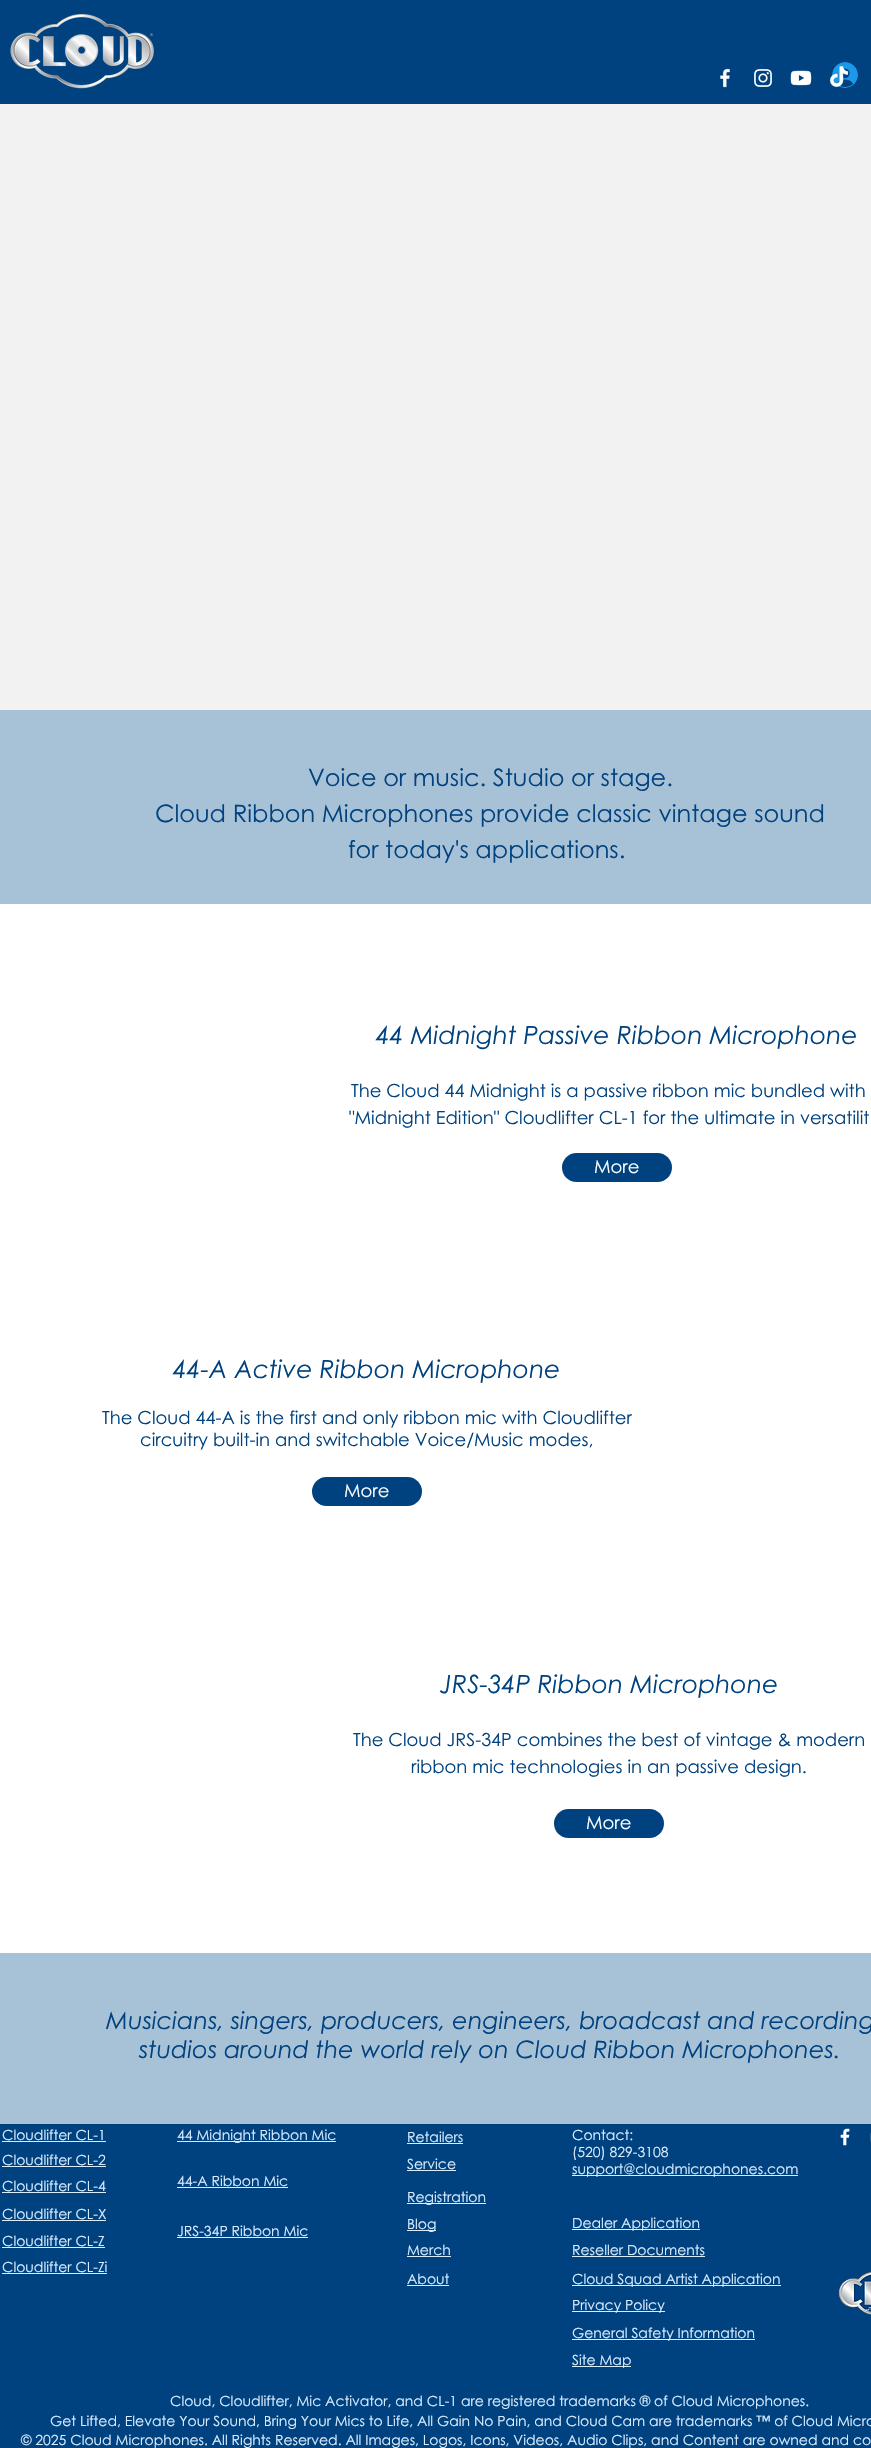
#include "include/core/SkBlurTypes.h"
#include "include/core/SkCanvas.h"
#include "include/core/SkData.h"
#include "include/core/SkFont.h"
#include "include/core/SkFontMgr.h"
#include "include/core/SkImage.h"
#include "include/core/SkMaskFilter.h"
#include "include/core/SkPaint.h"
#include "include/core/SkPathBuilder.h"
#include "include/core/SkTextBlob.h"
#include "include/effects/SkDashPathEffect.h"
#include "include/effects/SkGradientShader.h"
#include "include/utils/SkParsePath.h"

extern sk_sp<SkFontMgr> fontMgr;

static SkFont font(const char* family, int weight, float size, bool italic = false) {
    SkFontStyle style(weight, SkFontStyle::kNormal_Width,
        italic ? SkFontStyle::kItalic_Slant : SkFontStyle::kUpright_Slant);
    SkFont result(fontMgr->matchFamilyStyle(family, style), size);
    result.setSubpixel(true);
    return result;
}

static void drawLabel(SkCanvas* canvas, const char* s, float x, float y, const SkFont& font, SkColor color) {
    SkPaint ink(SkColor4f::FromColor(color));
    ink.setAntiAlias(true);
    canvas->drawString(s, x, y, font, ink);
}

static void fillRect(SkCanvas* canvas, float x, float y, float w, float h, SkColor color) {
    SkPaint ink(SkColor4f::FromColor(color));
    ink.setAntiAlias(true);
    canvas->drawRect(SkRect::MakeXYWH(x, y, w, h), ink);
}

static void fillRRect(SkCanvas* canvas, float x, float y, float w, float h, float radius, SkColor color) {
    SkPaint ink(SkColor4f::FromColor(color));
    ink.setAntiAlias(true);
    canvas->drawRoundRect(SkRect::MakeXYWH(x, y, w, h), radius, radius, ink);
}

static void drawPhoto(SkCanvas* canvas, const char* path, float x, float y, float w, float h) {
    auto image = SkImages::DeferredFromEncodedData(SkData::MakeFromFileName(path));
    canvas->drawImageRect(image, SkRect::MakeXYWH(x, y, w, h), SkSamplingOptions());
}

void draw(SkCanvas* canvas) {
    SkPaint paint;
    paint.setAntiAlias(true);
    canvas->clear(0xFF00427F);
    drawPhoto(canvas, "assets/img1.png", 10, 13, 144, 76);
    drawPhoto(canvas, "assets/img2.png", 832, 62, 26, 26);
    drawPhoto(canvas, "assets/img3.png", 720, 68, 10, 20);
    drawPhoto(canvas, "assets/img4.png", 754, 69, 18, 18);
    drawPhoto(canvas, "assets/img5.png", 790, 70, 22, 16);
    drawPhoto(canvas, "assets/img6.png", 829, 66, 20, 21);
    fillRect(canvas, 0, 104, 871, 606, 0xFFF2F2F2);
    fillRect(canvas, 0, 710, 871, 194, 0xFFA7C1D7);
    SkFont font1 = font("Century Gothic", 400, 24);
    drawLabel(canvas, "Voice or music. Studio or stage.", 308, 786, font1, 0xFF00427F);
    drawLabel(canvas, "Cloud Ribbon Microphones provide classic vintage sound", 155, 822, font1, 0xFF00427F);
    drawLabel(canvas, "for today's applications.", 348, 858, font1, 0xFF00427F);
    fillRect(canvas, 0, 904, 871, 1049, 0xFFFFFFFF);
    SkFont font2 = font("Century Gothic", 400, 25, true);
    drawLabel(canvas, "44 Midnight Passive Ribbon Microphone", 376, 1044, font2, 0xFF00427F);
    SkFont font3 = font("Century Gothic", 400, 18);
    drawLabel(canvas, "The Cloud 44 Midnight is a passive ribbon mic bundled with", 351, 1097, font3, 0xFF00427F);
    drawLabel(canvas, "\"Midnight Edition\" Cloudlifter CL-1 for the ultimate in versatilit", 349, 1124, font3, 0xFF00427F);
    fillRRect(canvas, 562, 1153, 110, 29, 14.5f, 0xFF00427F);
    drawLabel(canvas, "More", 594, 1173, font3, 0xFFFFFFFF);
    drawLabel(canvas, "44-A Active Ribbon Microphone", 173, 1378, font2, 0xFF00427F);
    drawLabel(canvas, "The Cloud 44-A is the first and only ribbon mic with Cloudlifter", 102, 1424, font3, 0xFF00427F);
    drawLabel(canvas, "circuitry built-in and switchable Voice/Music modes,", 140, 1446, font3, 0xFF00427F);
    fillRRect(canvas, 312, 1477, 110, 29, 14.5f, 0xFF00427F);
    drawLabel(canvas, "More", 344, 1497, font3, 0xFFFFFFFF);
    drawLabel(canvas, "JRS-34P Ribbon Microphone", 440, 1693, font2, 0xFF00427F);
    drawLabel(canvas, "The Cloud JRS-34P combines the best of vintage & modern", 353, 1746, font3, 0xFF00427F);
    drawLabel(canvas, "ribbon mic technologies in an passive design.", 411, 1773, font3, 0xFF00427F);
    fillRRect(canvas, 554, 1809, 110, 29, 14.5f, 0xFF00427F);
    drawLabel(canvas, "More", 586, 1829, font3, 0xFFFFFFFF);
    fillRect(canvas, 0, 1953, 871, 171, 0xFFA7C1D7);
    SkFont font4 = font("Century Gothic", 400, 24, true);
    drawLabel(canvas, "Musicians, singers, producers, engineers, broadcast and recording", 106, 2029, font4, 0xFF00427F);
    drawLabel(canvas, "studios around the world rely on Cloud Ribbon Microphones.", 139, 2058, font4, 0xFF00427F);
    SkFont font5 = font("Century Gothic", 400, 14);
    drawLabel(canvas, "Cloudlifter CL-1", 2, 2140, font5, 0xFFDAEDFF);
    fillRect(canvas, 2, 2141, 104, 1, 0xFFDAEDFF);
    fillRect(canvas, 177, 2141, 159, 1, 0xFFDAEDFF);
    drawLabel(canvas, "44 Midnight Ribbon Mic", 177, 2140, font5, 0xFFDAEDFF);
    drawLabel(canvas, "Retailers", 407, 2142, font5, 0xFFDAEDFF);
    fillRect(canvas, 407, 2143, 56, 1, 0xFFDAEDFF);
    drawLabel(canvas, "Contact:", 572, 2140, font5, 0xFFDAEDFF);
    drawLabel(canvas, "(520) 829-3108", 572, 2157, font5, 0xFFDAEDFF);
    fillRect(canvas, 572, 2175, 226, 1, 0xFFDAEDFF);
    drawLabel(canvas, "support@cloudmicrophones.com", 572, 2174, font5, 0xFFDAEDFF);
    drawPhoto(canvas, "assets/img7.png", 840, 2128, 10, 18);
    drawPhoto(canvas, "assets/img8.png", 870, 2132, 1, 10);
    drawLabel(canvas, "Cloudlifter CL-2", 2, 2165, font5, 0xFFDAEDFF);
    fillRect(canvas, 2, 2166, 104, 1, 0xFFDAEDFF);
    drawLabel(canvas, "Service", 407, 2169, font5, 0xFFDAEDFF);
    fillRect(canvas, 407, 2170, 49, 1, 0xFFDAEDFF);
    drawLabel(canvas, "Cloudlifter CL-4", 2, 2191, font5, 0xFFDAEDFF);
    fillRect(canvas, 2, 2192, 104, 1, 0xFFDAEDFF);
    drawLabel(canvas, "44-A Ribbon Mic", 177, 2186, font5, 0xFFDAEDFF);
    fillRect(canvas, 177, 2187, 111, 1, 0xFFDAEDFF);
    fillRect(canvas, 407, 2203, 79, 1, 0xFFDAEDFF);
    drawLabel(canvas, "Registration", 407, 2202, font5, 0xFFDAEDFF);
    drawLabel(canvas, "Cloudlifter CL-X", 2, 2219, font5, 0xFFDAEDFF);
    fillRect(canvas, 2, 2220, 104, 1, 0xFFDAEDFF);
    drawLabel(canvas, "JRS-34P Ribbon Mic", 177, 2236, font5, 0xFFDAEDFF);
    fillRect(canvas, 177, 2237, 131, 1, 0xFFDAEDFF);
    fillRect(canvas, 407, 2230, 29, 1, 0xFFDAEDFF);
    drawLabel(canvas, "Blog", 407, 2229, font5, 0xFFDAEDFF);
    fillRect(canvas, 572, 2229, 128, 1, 0xFFDAEDFF);
    SkFont font6 = font("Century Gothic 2", 400, 14);
    drawLabel(canvas, "Dealer Application", 572, 2228, font6, 0xFFDAEDFF);
    drawLabel(canvas, "Cloudlifter CL-Z", 2, 2246, font5, 0xFFDAEDFF);
    fillRect(canvas, 2, 2247, 103, 1, 0xFFDAEDFF);
    drawLabel(canvas, "Merch", 407, 2255, font5, 0xFFDAEDFF);
    fillRect(canvas, 407, 2256, 44, 1, 0xFFDAEDFF);
    drawLabel(canvas, "Reseller Documents", 572, 2255, font5, 0xFFDAEDFF);
    fillRect(canvas, 572, 2256, 133, 1, 0xFFDAEDFF);
    drawLabel(canvas, "Cloudlifter CL-Zi", 2, 2272, font5, 0xFFDAEDFF);
    fillRect(canvas, 2, 2273, 105, 1, 0xFFDAEDFF);
    drawLabel(canvas, "About", 407, 2284, font5, 0xFFDAEDFF);
    fillRect(canvas, 407, 2285, 42, 1, 0xFFDAEDFF);
    fillRect(canvas, 572, 2285, 209, 1, 0xFFDAEDFF);
    drawLabel(canvas, "Cloud Squad Artist Application", 572, 2284, font5, 0xFFDAEDFF);
    drawPhoto(canvas, "assets/img9.png", 838, 2271, 33, 44);
    fillRect(canvas, 572, 2311, 93, 1, 0xFFDAEDFF);
    drawLabel(canvas, "Privacy Policy", 572, 2310, font6, 0xFFDAEDFF);
    fillRect(canvas, 572, 2339, 183, 1, 0xFFDAEDFF);
    drawLabel(canvas, "General Safety Information", 572, 2338, font6, 0xFFDAEDFF);
    fillRect(canvas, 572, 2366, 59, 1, 0xFFDAEDFF);
    drawLabel(canvas, "Site Map", 572, 2365, font5, 0xFFDAEDFF);
    drawLabel(canvas, "Cloud, Cloudlifter, Mic Activator, and CL-1 are registered trademarks ® of Cloud Microphones.", 170, 2406, font5, 0xFFDAEDFF);
    drawLabel(canvas, "Get Lifted, Elevate Your Sound, Bring Your Mics to Life, All Gain No Pain, and Cloud Cam are trademarks ™ of Cloud Micro", 50, 2426, font5, 0xFFDAEDFF);
    drawLabel(canvas, "© 2025 Cloud Microphones. All Rights Reserved. All Images, Logos, Icons, Videos, Audio Clips, and Content are owned and co", 21, 2445, font5, 0xFFDAEDFF);
}
